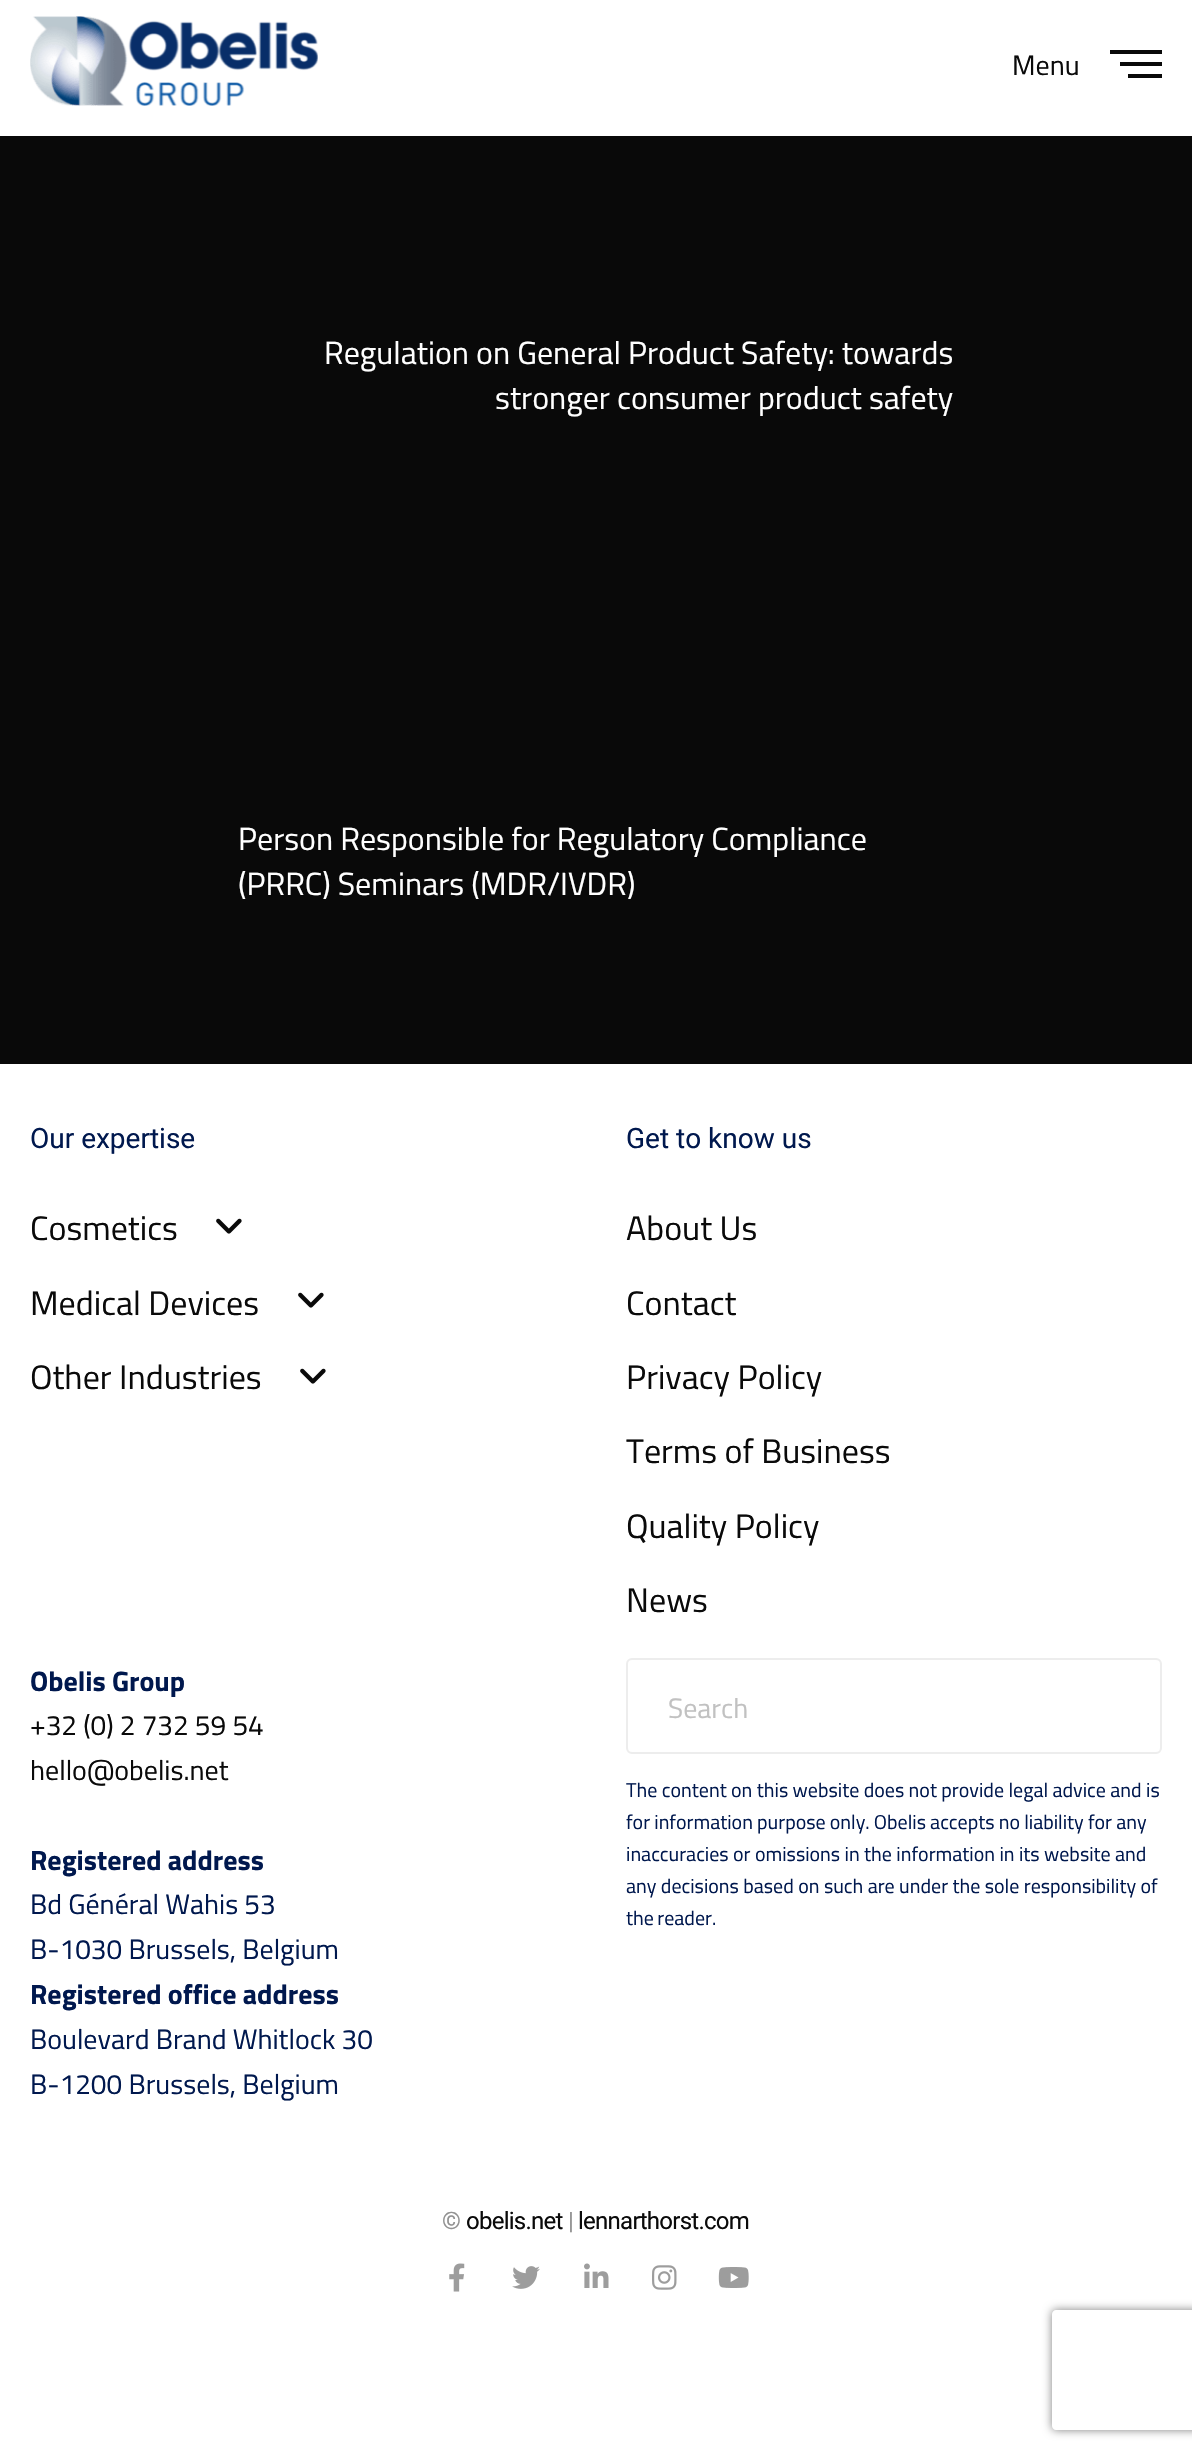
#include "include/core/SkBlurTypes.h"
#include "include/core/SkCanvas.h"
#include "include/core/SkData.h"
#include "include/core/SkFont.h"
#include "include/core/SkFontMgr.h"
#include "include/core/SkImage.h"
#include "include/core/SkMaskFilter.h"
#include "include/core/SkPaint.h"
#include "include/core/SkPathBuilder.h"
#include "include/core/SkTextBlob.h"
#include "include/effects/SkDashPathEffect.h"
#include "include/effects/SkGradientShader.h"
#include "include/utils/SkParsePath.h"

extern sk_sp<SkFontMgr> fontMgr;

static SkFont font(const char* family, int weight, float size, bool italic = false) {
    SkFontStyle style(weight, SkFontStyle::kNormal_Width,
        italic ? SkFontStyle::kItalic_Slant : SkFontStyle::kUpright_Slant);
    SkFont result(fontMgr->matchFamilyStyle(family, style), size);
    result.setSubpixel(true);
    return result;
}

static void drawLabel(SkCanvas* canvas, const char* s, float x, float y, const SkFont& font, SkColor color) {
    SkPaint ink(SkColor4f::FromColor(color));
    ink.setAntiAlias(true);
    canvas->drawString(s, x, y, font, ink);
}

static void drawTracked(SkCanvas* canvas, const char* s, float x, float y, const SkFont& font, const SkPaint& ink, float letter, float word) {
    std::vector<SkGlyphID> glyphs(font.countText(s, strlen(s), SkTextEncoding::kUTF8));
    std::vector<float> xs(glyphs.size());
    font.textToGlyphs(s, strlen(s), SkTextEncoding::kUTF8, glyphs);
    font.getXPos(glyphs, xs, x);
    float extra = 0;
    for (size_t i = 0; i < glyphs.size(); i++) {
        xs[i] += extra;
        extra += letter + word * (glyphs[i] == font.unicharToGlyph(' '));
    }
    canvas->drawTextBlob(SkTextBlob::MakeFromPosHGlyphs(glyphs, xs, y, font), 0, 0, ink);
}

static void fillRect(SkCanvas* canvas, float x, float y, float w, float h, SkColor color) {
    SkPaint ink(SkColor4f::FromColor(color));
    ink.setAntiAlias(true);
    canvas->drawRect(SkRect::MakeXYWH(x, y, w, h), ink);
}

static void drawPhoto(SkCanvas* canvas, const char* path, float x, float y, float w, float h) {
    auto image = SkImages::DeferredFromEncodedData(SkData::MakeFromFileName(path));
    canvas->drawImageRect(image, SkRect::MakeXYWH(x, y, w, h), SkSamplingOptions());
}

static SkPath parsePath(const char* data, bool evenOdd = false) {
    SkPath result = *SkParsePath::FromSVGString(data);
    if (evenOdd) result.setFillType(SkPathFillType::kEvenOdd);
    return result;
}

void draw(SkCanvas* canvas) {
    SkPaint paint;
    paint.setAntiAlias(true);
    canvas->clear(0xFFFFFFFF);
    drawPhoto(canvas, "assets/img1.png", 30, 16, 288, 90);
    SkFont font1 = font("Titillium Web", 400, 28);
    drawLabel(canvas, "Menu", 1012, 75, font1, 0xFF0A0A0A);
    fillRect(canvas, 1110, 50, 52, 4, 0xFF090909);
    fillRect(canvas, 1120, 62, 42, 4, 0xFF090909);
    fillRect(canvas, 1128, 74, 34, 4, 0xFF090909);
    fillRect(canvas, 0, 136, 1192, 928, 0xFF090909);
    SkFont font2 = font("Titillium Web", 400, 32);
    drawLabel(canvas, "Regulation on General Product Safety: towards", 324, 364, font2, 0xFFFFFFFF);
    drawLabel(canvas, "stronger consumer product safety", 495, 409, font2, 0xFFFFFFFF);
    drawLabel(canvas, "Person Responsible for Regulatory Compliance", 238, 850, font2, 0xFFFFFFFF);
    drawLabel(canvas, "(PRRC) Seminars (MDR/IVDR)", 238, 895, font2, 0xFFFFFFFF);
    SkFont font3 = font("Roboto", 400, 28);
    drawLabel(canvas, "Our expertise", 30, 1148, font3, 0xFF00184E);
    SkFont font4 = font("Titillium Web", 400, 34);
    drawLabel(canvas, "Cosmetics", 30, 1240, font4, 0xFF0A0A0A);
    drawPhoto(canvas, "assets/img2.png", 216, 1218, 26, 16);
    drawLabel(canvas, "Medical Devices", 30, 1315, font4, 0xFF0A0A0A);
    drawPhoto(canvas, "assets/img2.png", 298, 1292, 26, 16);
    drawLabel(canvas, "Other Industries", 30, 1389, font4, 0xFF0A0A0A);
    drawPhoto(canvas, "assets/img2.png", 300, 1368, 26, 16);
    drawLabel(canvas, "Get to know us", 626, 1148, font3, 0xFF00184E);
    drawLabel(canvas, "About Us", 626, 1240, font4, 0xFF0A0A0A);
    drawLabel(canvas, "Contact", 626, 1315, font4, 0xFF0A0A0A);
    drawLabel(canvas, "Privacy Policy", 626, 1389, font4, 0xFF0A0A0A);
    drawLabel(canvas, "Terms of Business", 626, 1463, font4, 0xFF0A0A0A);
    drawLabel(canvas, "Quality Policy", 626, 1538, font4, 0xFF0A0A0A);
    drawLabel(canvas, "News", 626, 1612, font4, 0xFF0A0A0A);
    SkFont font5 = font("Titillium Web", 700, 28);
    drawLabel(canvas, "Obelis Group", 30, 1691, font5, 0xFF00184E);
    drawLabel(canvas, "+32 (0) 2 732 59 54", 30, 1735, font1, 0xFF0A0A0A);
    drawLabel(canvas, "hello@obelis.net", 30, 1780, font1, 0xFF0A0A0A);
    drawLabel(canvas, "Registered address", 30, 1870, font5, 0xFF00184E);
    drawLabel(canvas, "Bd Général Wahis 53", 30, 1914, font1, 0xFF00184E);
    drawLabel(canvas, "B-1030 Brussels, Belgium", 30, 1959, font1, 0xFF00184E);
    drawLabel(canvas, "Registered office address", 30, 2004, font5, 0xFF00184E);
    drawLabel(canvas, "Boulevard Brand Whitlock 30", 30, 2049, font1, 0xFF00184E);
    drawLabel(canvas, "B-1200 Brussels, Belgium", 30, 2094, font1, 0xFF00184E);
    paint.setStroke(true);
    paint.setStrokeWidth(2);
    paint.setColor(0xFFEDEDED);
    canvas->drawRoundRect(SkRect::MakeXYWH(627, 1659, 534, 94), 5, 5, paint);
    drawLabel(canvas, "Search", 668, 1718, font1, 0xFFC1C1C1);
    SkFont font6 = font("Titillium Web", 400, 20);
    drawLabel(canvas, "The content on this website does not provide legal advice and is", 626, 1797, font6, 0xFF00184E);
    paint.setStroke(false);
    paint.setColor(0xFF00184E);
    drawTracked(canvas, "for information purpose only. Obelis accepts no liability for any", 626, 1829, font6, paint, 0, -0.25f);
    drawLabel(canvas, "inaccuracies or omissions in the information in its website and", 626, 1861, font6, 0xFF00184E);
    drawLabel(canvas, "any decisions based on such are under the sole responsibility of", 626, 1893, font6, 0xFF00184E);
    drawTracked(canvas, "the reader.", 626, 1925, font6, paint, 0, -1);
    SkFont font7 = font("Roboto", 400, 24);
    paint.setColor(0xFF929292);
    drawTracked(canvas, "©", 442, 2229, font7, paint, -0.75f, 0);
    paint.setColor(0xFF0A0A0A);
    drawTracked(canvas, "obelis.net", 466, 2229, font7, paint, -0.75f, 0);
    paint.setColor(0xFF929292);
    drawTracked(canvas, "|", 568, 2229, font7, paint, -0.75f, 0);
    paint.setColor(0xFF0A0A0A);
    drawTracked(canvas, "lennarthorst.com", 578, 2229, font7, paint, -0.75f, 0);
    drawPhoto(canvas, "assets/img3.png", 449, 2263, 16, 29);
    drawPhoto(canvas, "assets/img4.png", 512, 2266, 28, 23);
    drawPhoto(canvas, "assets/img5.png", 584, 2263, 25, 25);
    drawPhoto(canvas, "assets/img6.png", 652, 2265, 25, 25);
    drawPhoto(canvas, "assets/img7.png", 718, 2267, 31, 21);
    canvas->save();
    canvas->clipPath(parsePath("M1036 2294H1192V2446H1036ZM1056 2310H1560C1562 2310 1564 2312 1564 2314V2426C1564 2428 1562 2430 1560 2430H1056C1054 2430 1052 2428 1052 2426V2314C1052 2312 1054 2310 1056 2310Z", true), true);
    paint.setColor(0xFF808080);
    paint.setMaskFilter(SkMaskFilter::MakeBlur(kNormal_SkBlurStyle, 5));
    canvas->drawRoundRect(SkRect::MakeXYWH(1052, 2310, 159, 120), 4, 4, paint);
    paint.setMaskFilter(nullptr);
    canvas->restore();
}
